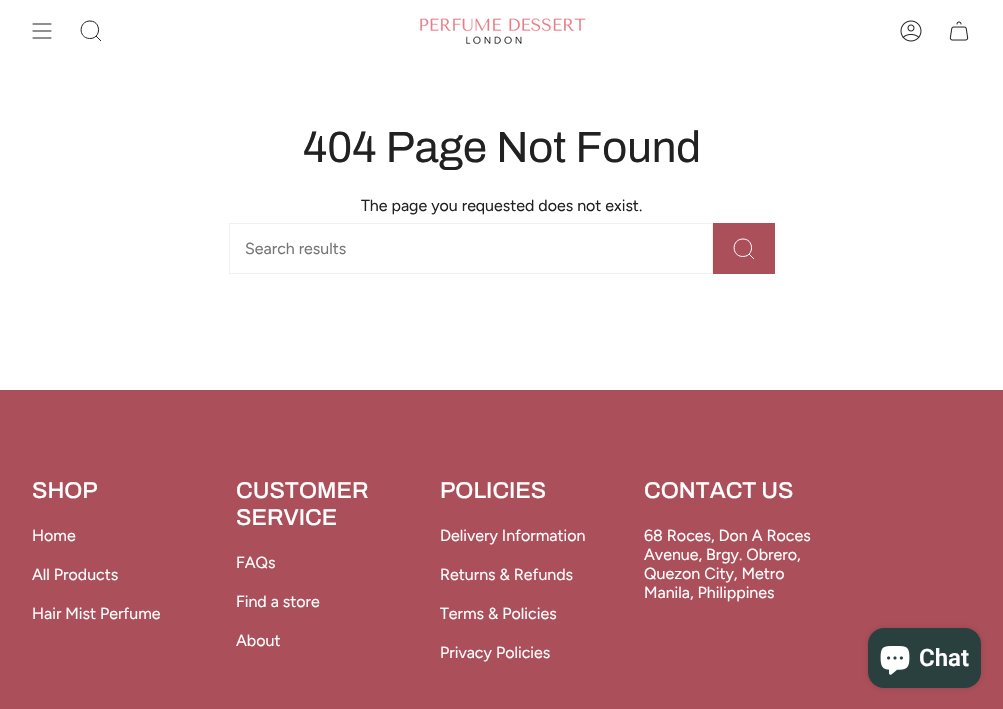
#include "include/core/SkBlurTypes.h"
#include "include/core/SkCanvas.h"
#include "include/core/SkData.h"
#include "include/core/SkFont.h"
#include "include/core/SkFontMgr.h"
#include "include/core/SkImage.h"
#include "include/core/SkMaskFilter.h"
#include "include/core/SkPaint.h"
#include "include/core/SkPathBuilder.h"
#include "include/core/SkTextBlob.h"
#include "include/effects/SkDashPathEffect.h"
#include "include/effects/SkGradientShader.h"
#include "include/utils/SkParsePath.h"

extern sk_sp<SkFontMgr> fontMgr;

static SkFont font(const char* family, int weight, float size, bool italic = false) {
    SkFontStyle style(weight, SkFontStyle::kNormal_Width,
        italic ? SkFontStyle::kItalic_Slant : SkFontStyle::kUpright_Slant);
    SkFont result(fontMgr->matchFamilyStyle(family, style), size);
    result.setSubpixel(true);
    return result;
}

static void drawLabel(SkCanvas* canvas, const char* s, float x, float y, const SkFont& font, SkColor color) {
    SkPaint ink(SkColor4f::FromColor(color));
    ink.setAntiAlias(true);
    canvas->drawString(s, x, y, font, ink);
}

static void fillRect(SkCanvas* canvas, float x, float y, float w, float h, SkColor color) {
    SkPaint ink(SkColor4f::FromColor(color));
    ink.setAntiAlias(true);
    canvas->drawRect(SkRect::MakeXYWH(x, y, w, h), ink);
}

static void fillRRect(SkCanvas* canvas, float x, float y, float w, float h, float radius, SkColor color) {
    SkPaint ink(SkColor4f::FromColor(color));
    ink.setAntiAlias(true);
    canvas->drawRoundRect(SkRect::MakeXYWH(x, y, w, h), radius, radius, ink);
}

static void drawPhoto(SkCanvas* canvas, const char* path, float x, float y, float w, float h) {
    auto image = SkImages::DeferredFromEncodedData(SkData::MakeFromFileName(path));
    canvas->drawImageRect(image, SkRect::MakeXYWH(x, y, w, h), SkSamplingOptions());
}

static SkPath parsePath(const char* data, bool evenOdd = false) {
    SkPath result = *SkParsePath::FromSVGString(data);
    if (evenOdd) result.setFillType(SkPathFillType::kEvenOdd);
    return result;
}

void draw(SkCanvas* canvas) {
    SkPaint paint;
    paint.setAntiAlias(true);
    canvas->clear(0xFFFFFFFF);
    paint.setStroke(true);
    paint.setStrokeWidth(1);
    paint.setStrokeCap(SkPaint::kRound_Cap);
    paint.setStrokeJoin(SkPaint::kRound_Join);
    paint.setColor(0xFF212121);
    canvas->drawPath(parsePath("M33 24H51M33 31H51M33 38H51"), paint);
    paint.setStrokeCap(SkPaint::kButt_Cap);
    paint.setStrokeJoin(SkPaint::kMiter_Join);
    canvas->drawPath(parsePath("M90 21C101.5 21 101.5 39 89.5 38.5C78 38 78.5 21 90 21ZM96 36L101 41"), paint);
    drawPhoto(canvas, "assets/img1.png", 420, 18, 166, 27);
    drawPhoto(canvas, "assets/img2.png", 900, 20, 22, 22);
    drawPhoto(canvas, "assets/img3.png", 949, 21, 20, 20);
    SkFont font1 = font("Archivo", 400, 43.75f);
    drawLabel(canvas, "404 Page Not Found", 303, 162, font1, 0xFF212121);
    SkFont font2 = font("Figtree", 400, 16);
    drawLabel(canvas, "The page you requested does not exist.", 361, 211, font2, 0xFF212121);
    paint.setColor(0xFFF0F0F0);
    canvas->drawRect(SkRect::MakeXYWH(229.5f, 223.5f, 483, 50), paint);
    drawLabel(canvas, "Search results", 245, 254, font2, 0xFF757575);
    fillRect(canvas, 713, 223, 62, 51, 0xFFAB4F5A);
    paint.setColor(0xFFFFFFFF);
    canvas->drawPath(parsePath("M743 239C754.5 239 754.5 257 742.5 256.5C731 256 731.5 239 743 239ZM749 254L754 259"), paint);
    fillRect(canvas, 0, 390, 1003, 319, 0xFFAB4F5A);
    SkFont font3 = font("Archivo", 500, 23);
    drawLabel(canvas, "SHOP", 32, 498, font3, 0xFFFFFFFF);
    drawLabel(canvas, "Home", 32, 541, font2, 0xFFFFFFFF);
    drawLabel(canvas, "All Products", 32, 580, font2, 0xFFFFFFFF);
    drawLabel(canvas, "Hair Mist Perfume", 32, 619, font2, 0xFFFFFFFF);
    drawLabel(canvas, "CUSTOMER", 236, 498, font3, 0xFFFFFFFF);
    drawLabel(canvas, "SERVICE", 236, 525, font3, 0xFFFFFFFF);
    drawLabel(canvas, "FAQs", 236, 568, font2, 0xFFFFFFFF);
    drawLabel(canvas, "Find a store", 236, 607, font2, 0xFFFFFFFF);
    drawLabel(canvas, "About", 236, 646, font2, 0xFFFFFFFF);
    drawLabel(canvas, "POLICIES", 440, 498, font3, 0xFFFFFFFF);
    drawLabel(canvas, "Delivery Information", 440, 541, font2, 0xFFFFFFFF);
    drawLabel(canvas, "Returns & Refunds", 440, 580, font2, 0xFFFFFFFF);
    drawLabel(canvas, "Terms & Policies", 440, 619, font2, 0xFFFFFFFF);
    drawLabel(canvas, "Privacy Policies", 440, 658, font2, 0xFFFFFFFF);
    drawLabel(canvas, "CONTACT US", 644, 498, font3, 0xFFFFFFFF);
    drawLabel(canvas, "68 Roces, Don A Roces", 644, 541, font2, 0xFFFFFFFF);
    drawLabel(canvas, "Avenue, Brgy. Obrero,", 644, 560, font2, 0xFFFFFFFF);
    drawLabel(canvas, "Quezon City, Metro", 644, 579, font2, 0xFFFFFFFF);
    drawLabel(canvas, "Manila, Philippines", 644, 598, font2, 0xFFFFFFFF);
    paint.setStroke(false);
    paint.setColor(0x26000000);
    paint.setMaskFilter(SkMaskFilter::MakeBlur(kNormal_SkBlurStyle, 2.5f));
    canvas->drawRoundRect(SkRect::MakeXYWH(868, 628, 113, 60), 16, 16, paint);
    paint.setMaskFilter(nullptr);
    fillRRect(canvas, 868, 628, 113, 60, 16, 0xFF2A403F);
    drawPhoto(canvas, "assets/img4.png", 880, 646, 30, 29);
    SkFont font4 = font("Roboto", 600, 24);
    drawLabel(canvas, "Chat", 919, 666, font4, 0xFFFFFFFF);
}
